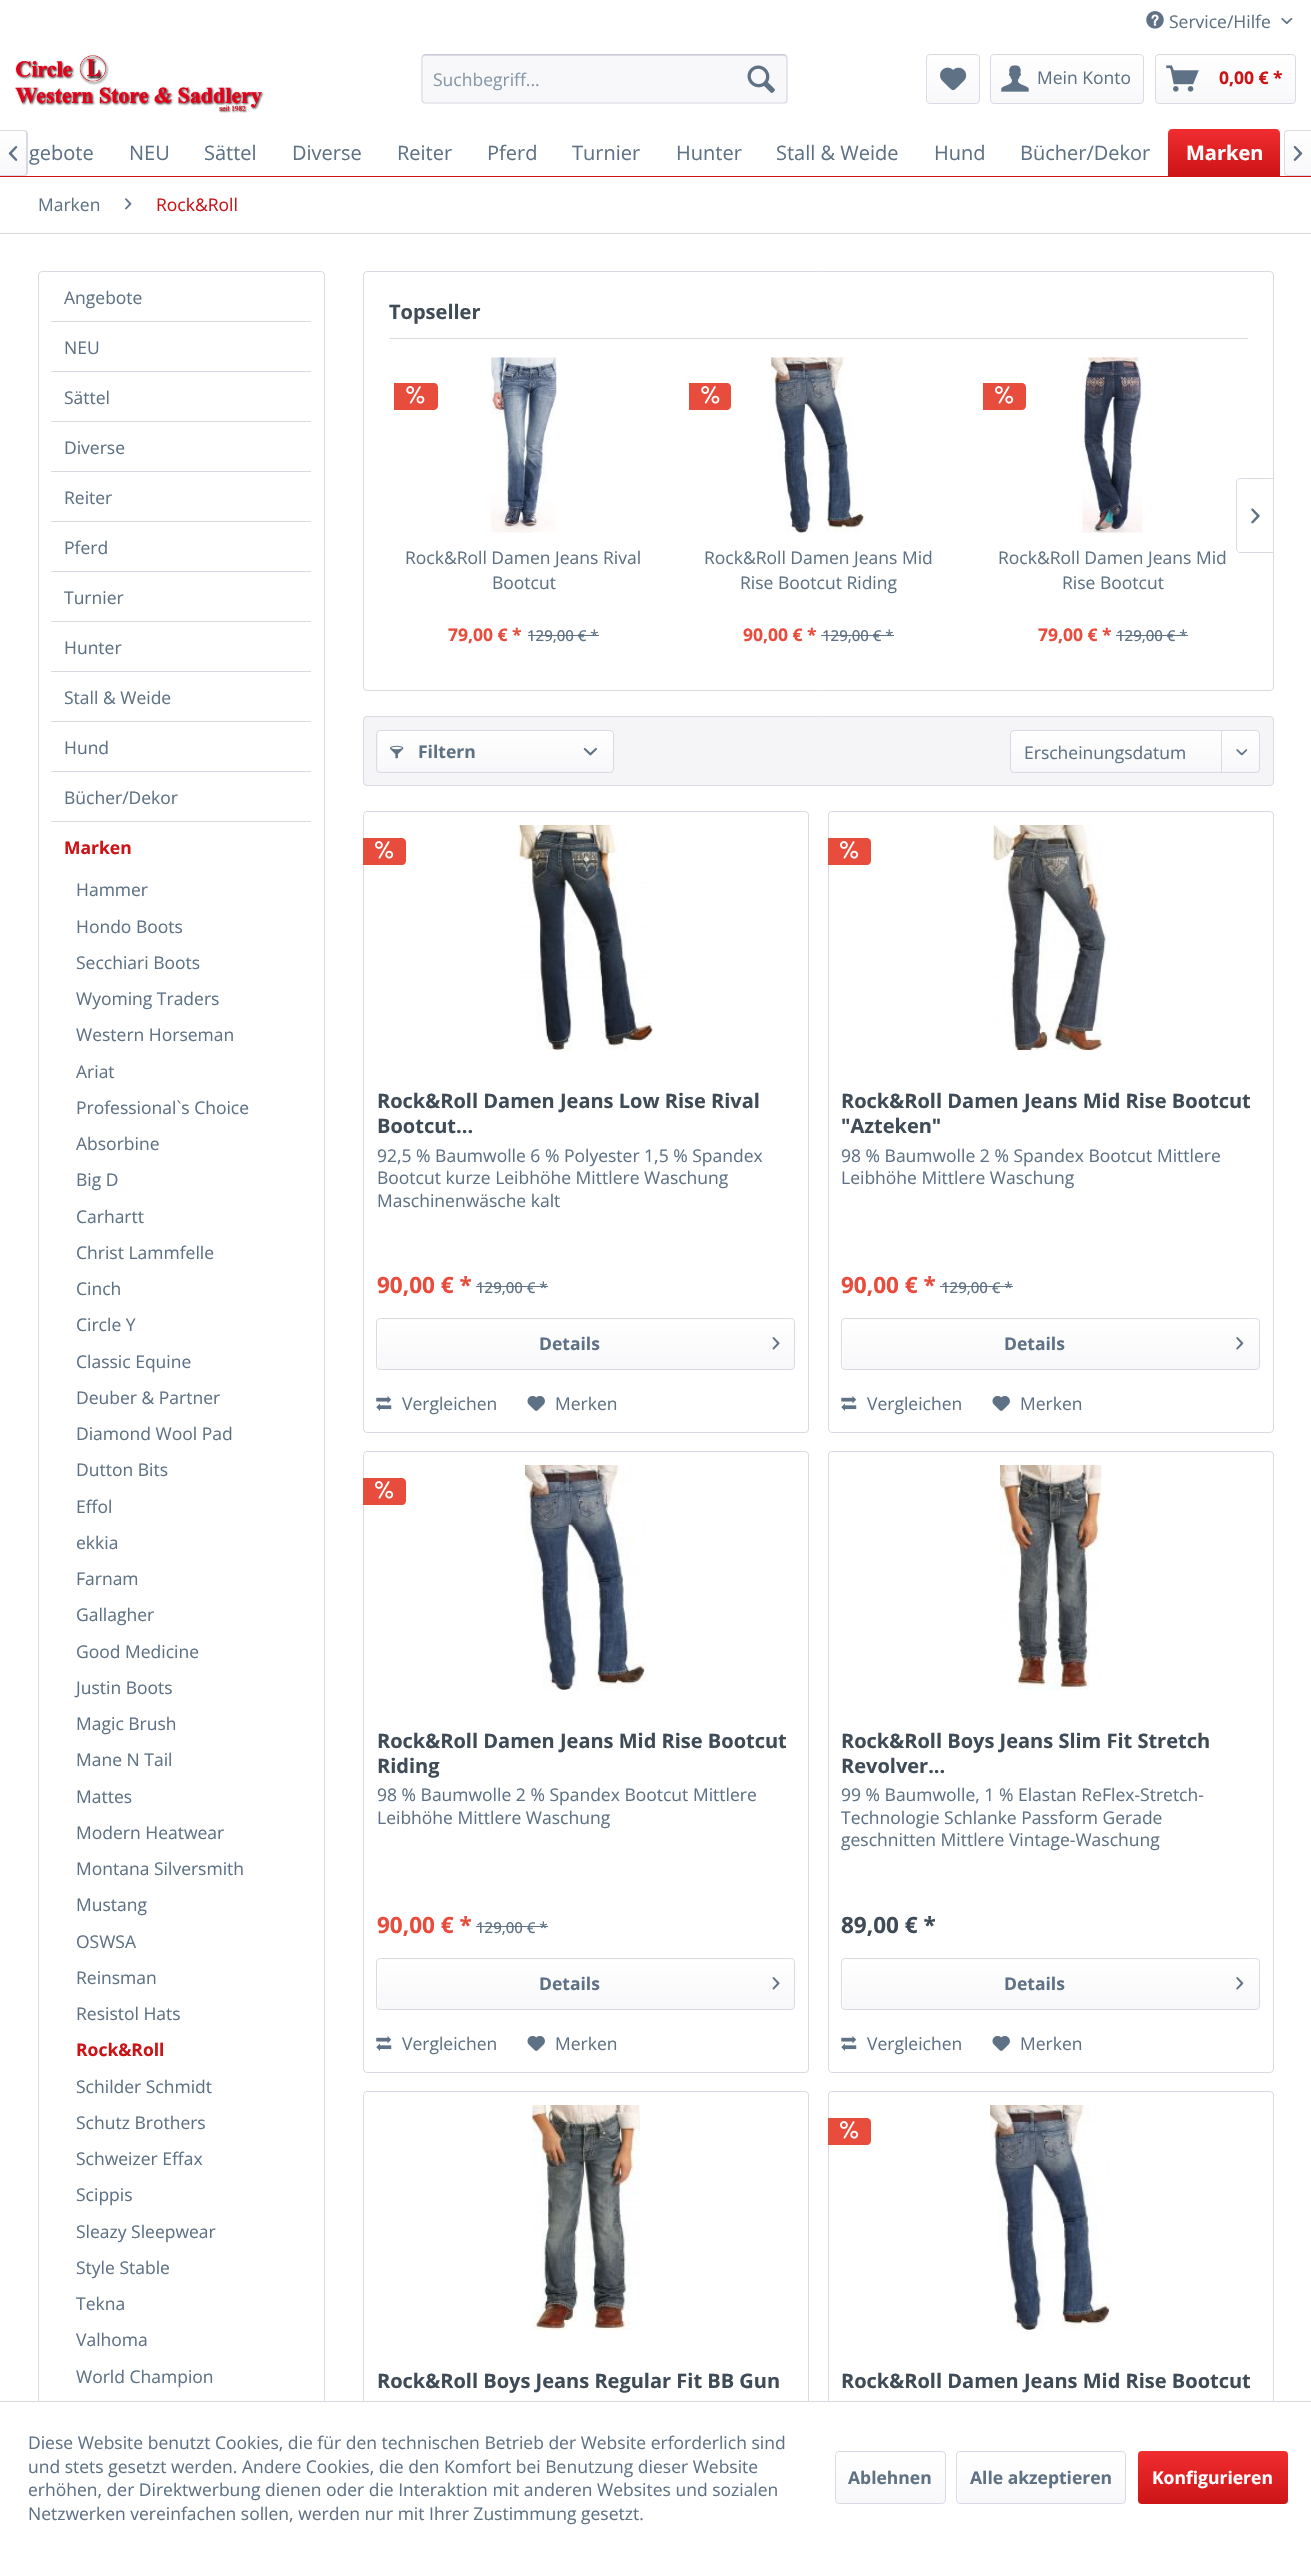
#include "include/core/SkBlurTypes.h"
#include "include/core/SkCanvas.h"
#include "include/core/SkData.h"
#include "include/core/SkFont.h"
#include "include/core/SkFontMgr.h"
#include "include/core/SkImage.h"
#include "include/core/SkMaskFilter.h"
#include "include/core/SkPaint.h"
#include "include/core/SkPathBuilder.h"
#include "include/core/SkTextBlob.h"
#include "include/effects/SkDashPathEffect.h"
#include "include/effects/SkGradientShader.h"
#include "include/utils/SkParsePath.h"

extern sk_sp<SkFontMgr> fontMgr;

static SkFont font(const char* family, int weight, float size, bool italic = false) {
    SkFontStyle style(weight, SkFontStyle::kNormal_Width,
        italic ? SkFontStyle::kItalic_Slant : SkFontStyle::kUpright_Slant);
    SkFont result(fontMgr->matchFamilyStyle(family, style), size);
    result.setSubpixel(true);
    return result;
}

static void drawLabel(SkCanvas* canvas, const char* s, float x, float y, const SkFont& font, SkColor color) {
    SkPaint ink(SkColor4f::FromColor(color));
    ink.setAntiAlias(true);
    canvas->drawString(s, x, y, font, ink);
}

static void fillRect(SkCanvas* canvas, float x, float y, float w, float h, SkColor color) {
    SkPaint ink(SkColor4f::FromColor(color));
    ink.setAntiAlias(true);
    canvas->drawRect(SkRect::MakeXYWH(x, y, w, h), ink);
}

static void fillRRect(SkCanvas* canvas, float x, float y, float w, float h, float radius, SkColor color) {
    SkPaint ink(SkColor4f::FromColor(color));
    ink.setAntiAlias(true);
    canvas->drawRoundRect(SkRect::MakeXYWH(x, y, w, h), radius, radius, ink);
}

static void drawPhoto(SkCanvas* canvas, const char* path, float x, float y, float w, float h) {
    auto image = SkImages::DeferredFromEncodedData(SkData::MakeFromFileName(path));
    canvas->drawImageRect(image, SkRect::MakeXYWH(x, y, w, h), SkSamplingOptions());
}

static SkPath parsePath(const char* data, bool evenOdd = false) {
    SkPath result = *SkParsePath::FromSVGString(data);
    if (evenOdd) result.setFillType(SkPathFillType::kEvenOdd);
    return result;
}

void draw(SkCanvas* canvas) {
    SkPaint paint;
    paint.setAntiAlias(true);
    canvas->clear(0xFFFFFFFF);
    drawPhoto(canvas, "assets/img1.png", 1146, 11, 18, 18);
    SkFont font1 = font("Open Sans", 400, 17.5f);
    drawLabel(canvas, "Service/Hilfe", 1169, 28, font1, 0xFF5F7285);
    drawPhoto(canvas, "assets/img2.png", 1281, 17, 12, 8);
    drawPhoto(canvas, "assets/img3.png", 15, 55, 249, 58);
    fillRRect(canvas, 421, 54, 367, 50, 4, 0xFFF8F8FA);
    paint.setColor(0xFFDADAE5);
    canvas->drawPath(parsePath("M425 56H784C785 56 786 57 786 59V58C786 56 785 55 784 55H426C424 55 423 56 423 57Z"), paint);
    paint.setStroke(true);
    paint.setStrokeWidth(1.2f);
    paint.setColor(0xFFCBCBDB);
    canvas->drawPath(parsePath("M423 55.5L425 54.5H784L786 55.5"), paint);
    paint.setColor(0xFFDADAE5);
    canvas->drawPath(parsePath("M786 55.5L787 57.5V100L786 102L784 103H425L423 102L422 100V57.5L423 55.5"), paint);
    drawLabel(canvas, "Suchbegriff...", 433, 86, font1, 0xFF8798A9);
    drawPhoto(canvas, "assets/img4.png", 747, 65, 28, 28);
    paint.setStroke(false);
    {
        const SkColor colors[] = {0xFFFFFFFF, 0xFFF8F8FA};
        const float stops[] = {0, 1};
        const SkPoint ends[] = {{953, 55}, {953, 103}};
        paint.setShader(SkGradientShader::MakeLinear(ends, colors, stops, 2, SkTileMode::kClamp));
        paint.setAlpha(255);
    }
    canvas->drawRoundRect(SkRect::MakeXYWH(928, 55, 51, 48), 2.5f, 2.5f, paint);
    paint.setStroke(true);
    paint.setStrokeWidth(1);
    paint.setShader(nullptr);
    paint.setColor(0xFFDADAE5);
    canvas->drawRoundRect(SkRect::MakeXYWH(926.5f, 54.5f, 53, 49), 3.5f, 3.5f, paint);
    drawPhoto(canvas, "assets/img5.png", 940, 67, 27, 24);
    paint.setStroke(false);
    {
        const SkColor colors[] = {0xFFFFFFFF, 0xFFF8F8FA};
        const float stops[] = {0, 1};
        const SkPoint ends[] = {{1067, 55}, {1067, 103}};
        paint.setShader(SkGradientShader::MakeLinear(ends, colors, stops, 2, SkTileMode::kClamp));
        paint.setAlpha(255);
    }
    canvas->drawRoundRect(SkRect::MakeXYWH(991, 55, 152, 48), 2.5f, 2.5f, paint);
    paint.setStroke(true);
    paint.setShader(nullptr);
    paint.setColor(0xFFDADAE5);
    canvas->drawRoundRect(SkRect::MakeXYWH(990.5f, 54.5f, 153, 49), 3.5f, 3.5f, paint);
    drawPhoto(canvas, "assets/img6.png", 1001, 65, 28, 27);
    drawLabel(canvas, "Mein Konto", 1037, 84, font1, 0xFF5F7285);
    paint.setStroke(false);
    {
        const SkColor colors[] = {0xFFFFFFFF, 0xFFF8F8FA};
        const float stops[] = {0, 1};
        const SkPoint ends[] = {{1226, 55}, {1226, 103}};
        paint.setShader(SkGradientShader::MakeLinear(ends, colors, stops, 2, SkTileMode::kClamp));
        paint.setAlpha(255);
    }
    canvas->drawRoundRect(SkRect::MakeXYWH(1156, 55, 139, 48), 2.5f, 2.5f, paint);
    paint.setStroke(true);
    paint.setShader(nullptr);
    paint.setColor(0xFFDADAE5);
    canvas->drawRoundRect(SkRect::MakeXYWH(1155.5f, 54.5f, 140, 49), 3.5f, 3.5f, paint);
    drawPhoto(canvas, "assets/img7.png", 1166, 65, 33, 27);
    SkFont font2 = font("Open Sans", 700, 17.5f);
    drawLabel(canvas, "0,00 € *", 1219, 84, font2, 0xFFCC1417);
    fillRect(canvas, 0, 176, 1311, 1, 0xFFCC1417);
    paint.setStroke(false);
    {
        const SkColor colors[] = {0xFFFFFFFF, 0xFFF8F8FA};
        const float stops[] = {0, 1};
        const SkPoint ends[] = {{13, 131}, {13, 175}};
        paint.setShader(SkGradientShader::MakeLinear(ends, colors, stops, 2, SkTileMode::kClamp));
        paint.setAlpha(255);
    }
    canvas->drawPath(parsePath("M0 131H23.5C25 131 26 132 26 133.5V172.5C26 174 25 175 23.5 175H0Z"), paint);
    paint.setShader(nullptr);
    paint.setColor(0xFFDADAE5);
    canvas->drawPath(parsePath("M0 130H24C26 130 28 132 28 134V172C28 175 26 176 24 176H0ZM0 131H24C25 131 26 132 26 134V172C26 174 25 175 24 175H0Z", true), paint);
    drawPhoto(canvas, "assets/img8.png", 8, 146, 10, 15);
    SkFont font3 = font("Open Sans", 400, 20);
    drawLabel(canvas, "gebote", 29, 160, font3, 0xFF5F7285);
    drawLabel(canvas, "NEU", 129, 160, font3, 0xFF5F7285);
    drawLabel(canvas, "Sättel", 204, 160, font3, 0xFF5F7285);
    drawLabel(canvas, "Diverse", 292, 160, font3, 0xFF5F7285);
    drawLabel(canvas, "Reiter", 397, 160, font3, 0xFF5F7285);
    drawLabel(canvas, "Pferd", 487, 160, font3, 0xFF5F7285);
    drawLabel(canvas, "Turnier", 572, 160, font3, 0xFF5F7285);
    drawLabel(canvas, "Hunter", 676, 160, font3, 0xFF5F7285);
    drawLabel(canvas, "Stall & Weide", 776, 160, font3, 0xFF5F7285);
    drawLabel(canvas, "Hund", 934, 160, font3, 0xFF5F7285);
    drawLabel(canvas, "Bücher/Dekor", 1020, 160, font3, 0xFF5F7285);
    {
        const SkColor colors[] = {0xFFF12D30, 0xFFCC1417};
        const float stops[] = {0, 1};
        const SkPoint ends[] = {{1224, 129}, {1224, 176}};
        paint.setShader(SkGradientShader::MakeLinear(ends, colors, stops, 2, SkTileMode::kClamp));
        paint.setAlpha(255);
    }
    canvas->drawPath(parsePath("M1172 129H1276C1278 129 1280 131 1280 133V176H1168V133C1168 131 1170 129 1172 129Z"), paint);
    SkFont font4 = font("Open Sans", 700, 20);
    drawLabel(canvas, "Marken", 1186, 160, font4, 0xFFFFFFFF);
    {
        const SkColor colors[] = {0xFFFFFFFF, 0xFFF8F8FA};
        const float stops[] = {0, 1};
        const SkPoint ends[] = {{1298, 131}, {1298, 175}};
        paint.setShader(SkGradientShader::MakeLinear(ends, colors, stops, 2, SkTileMode::kClamp));
        paint.setAlpha(255);
    }
    canvas->drawPath(parsePath("M1287.5 131H1311V175H1287.5C1286 175 1285 174 1285 172.5V133.5C1285 132 1286 131 1287.5 131Z"), paint);
    paint.setShader(nullptr);
    paint.setColor(0xFFDADAE5);
    canvas->drawPath(parsePath("M1288 130H1311V176H1288C1285 176 1284 175 1284 172V134C1284 132 1285 130 1288 130ZM1288 131H1311V175H1288C1286 175 1285 174 1285 172V134C1285 132 1286 131 1288 131Z", true), paint);
    drawPhoto(canvas, "assets/img9.png", 1293, 146, 10, 15);
    fillRect(canvas, 0, 233, 1311, 1, 0xFFDADAE5);
    drawLabel(canvas, "Marken", 38, 211, font1, 0xFF5F7285);
    drawPhoto(canvas, "assets/img10.png", 125, 198, 7, 12);
    drawLabel(canvas, "Rock&Roll", 156, 211, font1, 0xFFCC1417);
    paint.setStroke(true);
    canvas->drawRoundRect(SkRect::MakeXYWH(38.5f, 271.5f, 286, 2186), 3.5f, 3.5f, paint);
    fillRect(canvas, 51, 321, 260, 1, 0xFFDADAE5);
    drawLabel(canvas, "Angebote", 64, 304, font1, 0xFF5F7285);
    fillRect(canvas, 51, 371, 260, 1, 0xFFDADAE5);
    drawLabel(canvas, "NEU", 64, 354, font1, 0xFF5F7285);
    fillRect(canvas, 51, 421, 260, 1, 0xFFDADAE5);
    drawLabel(canvas, "Sättel", 64, 404, font1, 0xFF5F7285);
    fillRect(canvas, 51, 471, 260, 1, 0xFFDADAE5);
    drawLabel(canvas, "Diverse", 64, 454, font1, 0xFF5F7285);
    fillRect(canvas, 51, 521, 260, 1, 0xFFDADAE5);
    drawLabel(canvas, "Reiter", 64, 504, font1, 0xFF5F7285);
    fillRect(canvas, 51, 571, 260, 1, 0xFFDADAE5);
    drawLabel(canvas, "Pferd", 64, 554, font1, 0xFF5F7285);
    fillRect(canvas, 51, 621, 260, 1, 0xFFDADAE5);
    drawLabel(canvas, "Turnier", 64, 604, font1, 0xFF5F7285);
    fillRect(canvas, 51, 671, 260, 1, 0xFFDADAE5);
    drawLabel(canvas, "Hunter", 64, 654, font1, 0xFF5F7285);
    fillRect(canvas, 51, 721, 260, 1, 0xFFDADAE5);
    drawLabel(canvas, "Stall & Weide", 64, 704, font1, 0xFF5F7285);
    fillRect(canvas, 51, 771, 260, 1, 0xFFDADAE5);
    drawLabel(canvas, "Hund", 64, 754, font1, 0xFF5F7285);
    fillRect(canvas, 51, 821, 260, 1, 0xFFDADAE5);
    drawLabel(canvas, "Bücher/Dekor", 64, 804, font1, 0xFF5F7285);
    drawLabel(canvas, "Marken", 64, 854, font2, 0xFFCC1417);
    drawLabel(canvas, "Hammer", 76, 896, font1, 0xFF5F7285);
    drawLabel(canvas, "Hondo Boots", 76, 933, font1, 0xFF5F7285);
    drawLabel(canvas, "Secchiari Boots", 76, 969, font1, 0xFF5F7285);
    drawLabel(canvas, "Wyoming Traders", 76, 1005, font1, 0xFF5F7285);
    drawLabel(canvas, "Western Horseman", 76, 1041, font1, 0xFF5F7285);
    drawLabel(canvas, "Ariat", 76, 1078, font1, 0xFF5F7285);
    drawLabel(canvas, "Professional`s Choice", 76, 1114, font1, 0xFF5F7285);
    drawLabel(canvas, "Absorbine", 76, 1150, font1, 0xFF5F7285);
    drawLabel(canvas, "Big D", 76, 1186, font1, 0xFF5F7285);
    drawLabel(canvas, "Carhartt", 76, 1223, font1, 0xFF5F7285);
    drawLabel(canvas, "Christ Lammfelle", 76, 1259, font1, 0xFF5F7285);
    drawLabel(canvas, "Cinch", 76, 1295, font1, 0xFF5F7285);
    drawLabel(canvas, "Circle Y", 76, 1331, font1, 0xFF5F7285);
    drawLabel(canvas, "Classic Equine", 76, 1368, font1, 0xFF5F7285);
    drawLabel(canvas, "Deuber & Partner", 76, 1404, font1, 0xFF5F7285);
    drawLabel(canvas, "Diamond Wool Pad", 76, 1440, font1, 0xFF5F7285);
    drawLabel(canvas, "Dutton Bits", 76, 1476, font1, 0xFF5F7285);
    drawLabel(canvas, "Effol", 76, 1513, font1, 0xFF5F7285);
    drawLabel(canvas, "ekkia", 76, 1549, font1, 0xFF5F7285);
    drawLabel(canvas, "Farnam", 76, 1585, font1, 0xFF5F7285);
    drawLabel(canvas, "Gallagher", 76, 1621, font1, 0xFF5F7285);
    drawLabel(canvas, "Good Medicine", 76, 1658, font1, 0xFF5F7285);
    drawLabel(canvas, "Justin Boots", 76, 1694, font1, 0xFF5F7285);
    drawLabel(canvas, "Magic Brush", 76, 1730, font1, 0xFF5F7285);
    drawLabel(canvas, "Mane N Tail", 76, 1766, font1, 0xFF5F7285);
    drawLabel(canvas, "Mattes", 76, 1803, font1, 0xFF5F7285);
    drawLabel(canvas, "Modern Heatwear", 76, 1839, font1, 0xFF5F7285);
    drawLabel(canvas, "Montana Silversmith", 76, 1875, font1, 0xFF5F7285);
    drawLabel(canvas, "Mustang", 76, 1911, font1, 0xFF5F7285);
    drawLabel(canvas, "OSWSA", 76, 1948, font1, 0xFF5F7285);
    drawLabel(canvas, "Reinsman", 76, 1984, font1, 0xFF5F7285);
    drawLabel(canvas, "Resistol Hats", 76, 2020, font1, 0xFF5F7285);
    drawLabel(canvas, "Rock&Roll", 76, 2056, font2, 0xFFCC1417);
    drawLabel(canvas, "Schilder Schmidt", 76, 2093, font1, 0xFF5F7285);
    drawLabel(canvas, "Schutz Brothers", 76, 2129, font1, 0xFF5F7285);
    drawLabel(canvas, "Schweizer Effax", 76, 2165, font1, 0xFF5F7285);
    drawLabel(canvas, "Scippis", 76, 2201, font1, 0xFF5F7285);
    drawLabel(canvas, "Sleazy Sleepwear", 76, 2238, font1, 0xFF5F7285);
    drawLabel(canvas, "Style Stable", 76, 2274, font1, 0xFF5F7285);
    drawLabel(canvas, "Tekna", 76, 2310, font1, 0xFF5F7285);
    drawLabel(canvas, "Valhoma", 76, 2346, font1, 0xFF5F7285);
    drawLabel(canvas, "World Champion", 76, 2383, font1, 0xFF5F7285);
    canvas->drawRoundRect(SkRect::MakeXYWH(363.5f, 271.5f, 910, 419), 3.5f, 3.5f, paint);
    fillRect(canvas, 389, 338, 859, 1, 0xFFDADAE5);
    drawLabel(canvas, "Topseller", 389, 319, font4, 0xFF3F4C58);
    canvas->drawPath(parsePath("M1240 478.5H1273.5V552.5H1240C1238 552.5 1236.5 551 1236.5 549V482C1236.5 480 1238 478.5 1240 478.5Z"), paint);
    drawPhoto(canvas, "assets/img11.png", 1251, 508, 9, 16);
    paint.setStroke(false);
    paint.setColor(0xFFE74C3C);
    canvas->drawPath(parsePath("M394 383H434C436 383 438 385 438 387V406C438 408 436 410 434 410H394Z"), paint);
    drawPhoto(canvas, "assets/img12.png", 406, 386, 19, 18);
    drawPhoto(canvas, "assets/img13.png", 491, 357, 66, 176);
    drawLabel(canvas, "Rock&Roll Damen Jeans Rival", 405, 564, font1, 0xFF5F7285);
    drawLabel(canvas, "Bootcut", 492, 589, font1, 0xFF5F7285);
    drawLabel(canvas, "79,00 € *", 448, 641, font2, 0xFFE74C3C);
    SkFont font5 = font("Open Sans", 500, 15);
    drawLabel(canvas, "129,00 € *", 527, 641, font5, 0xFF5F7285);
    fillRect(canvas, 528, 635, 71, 1, 0xFF5F7285);
    canvas->drawPath(parsePath("M689 383H727C729 383 731 385 731 387V406C731 408 729 410 727 410H689Z"), paint);
    drawPhoto(canvas, "assets/img12.png", 701, 386, 19, 18);
    drawPhoto(canvas, "assets/img14.png", 771, 357, 94, 176);
    drawLabel(canvas, "Rock&Roll Damen Jeans Mid", 704, 564, font1, 0xFF5F7285);
    drawLabel(canvas, "Rise Bootcut Riding", 740, 589, font1, 0xFF5F7285);
    drawLabel(canvas, "90,00 € *", 743, 641, font2, 0xFFE74C3C);
    drawLabel(canvas, "129,00 € *", 822, 641, font5, 0xFF5F7285);
    fillRect(canvas, 821, 635, 73, 1, 0xFF5F7285);
    canvas->drawPath(parsePath("M983 383H1022C1024 383 1026 385 1026 387V406C1026 408 1024 410 1022 410H983Z"), paint);
    drawPhoto(canvas, "assets/img15.png", 995, 386, 19, 18);
    drawPhoto(canvas, "assets/img16.png", 1082, 357, 61, 176);
    drawLabel(canvas, "Rock&Roll Damen Jeans Mid", 998, 564, font1, 0xFF5F7285);
    drawLabel(canvas, "Rise Bootcut", 1062, 589, font1, 0xFF5F7285);
    drawLabel(canvas, "79,00 € *", 1038, 641, font2, 0xFFE74C3C);
    drawLabel(canvas, "129,00 € *", 1116, 641, font5, 0xFF5F7285);
    fillRect(canvas, 1116, 635, 72, 1, 0xFF5F7285);
    paint.setColor(0xFFF5F5F8);
    canvas->drawRoundRect(SkRect::MakeXYWH(363.5f, 716.5f, 910, 69), 3.5f, 3.5f, paint);
    paint.setStroke(true);
    paint.setColor(0xFFDADAE5);
    canvas->drawRoundRect(SkRect::MakeXYWH(363.5f, 716.5f, 910, 69), 3.5f, 3.5f, paint);
    paint.setStroke(false);
    {
        const SkColor colors[] = {0xFFFFFFFF, 0xFFF8F8FA};
        const float stops[] = {0, 1};
        const SkPoint ends[] = {{495, 731}, {495, 771}};
        paint.setShader(SkGradientShader::MakeLinear(ends, colors, stops, 2, SkTileMode::kClamp));
        paint.setAlpha(255);
    }
    canvas->drawRoundRect(SkRect::MakeXYWH(378, 731, 235, 40), 2.5f, 2.5f, paint);
    paint.setStroke(true);
    paint.setShader(nullptr);
    paint.setColor(0xFFDADAE5);
    canvas->drawRoundRect(SkRect::MakeXYWH(376.5f, 730.5f, 237, 42), 3.5f, 3.5f, paint);
    drawPhoto(canvas, "assets/img17.png", 390, 745, 14, 14);
    drawLabel(canvas, "Filtern", 418, 758, font2, 0xFF5F7285);
    drawPhoto(canvas, "assets/img18.png", 583, 748, 14, 8);
    paint.setStroke(false);
    {
        const SkColor colors[] = {0xFFFFFFFF, 0xFFF8F8FA};
        const float stops[] = {0, 1};
        const SkPoint ends[] = {{1135, 731}, {1135, 771}};
        paint.setShader(SkGradientShader::MakeLinear(ends, colors, stops, 2, SkTileMode::kClamp));
        paint.setAlpha(255);
    }
    canvas->drawRoundRect(SkRect::MakeXYWH(1011, 731, 248, 40), 2.5f, 2.5f, paint);
    paint.setStroke(true);
    paint.setShader(nullptr);
    paint.setColor(0xFFDADAE5);
    canvas->drawRoundRect(SkRect::MakeXYWH(1010.5f, 730.5f, 249, 42), 3.5f, 3.5f, paint);
    drawLabel(canvas, "Erscheinungsdatum", 1024, 759, font1, 0xFF5F7285);
    fillRect(canvas, 1221, 731, 1, 42, 0xFFDADAE5);
    drawPhoto(canvas, "assets/img19.png", 1236, 749, 12, 7);
    canvas->drawRoundRect(SkRect::MakeXYWH(363.5f, 811.5f, 445, 621), 3.5f, 3.5f, paint);
    paint.setStroke(false);
    paint.setColor(0xFFE74C3C);
    canvas->drawPath(parsePath("M363 838H402C404 838 406 840 406 842V861C406 863 404 865 402 865H363Z"), paint);
    drawPhoto(canvas, "assets/img15.png", 375, 841, 19, 18);
    drawPhoto(canvas, "assets/img20.png", 518, 825, 135, 225);
    drawLabel(canvas, "Rock&Roll Damen Jeans Low Rise Rival", 377, 1108, font4, 0xFF3F4C58);
    drawLabel(canvas, "Bootcut...", 377, 1133, font4, 0xFF3F4C58);
    drawLabel(canvas, "92,5 % Baumwolle 6 % Polyester 1,5 % Spandex", 377, 1162, font1, 0xFF5F7285);
    drawLabel(canvas, "Bootcut kurze Leibhöhe Mittlere Waschung", 377, 1184, font1, 0xFF5F7285);
    drawLabel(canvas, "Maschinenwäsche kalt", 377, 1207, font1, 0xFF5F7285);
    SkFont font6 = font("Open Sans", 700, 22.5f);
    drawLabel(canvas, "90,00 € *", 377, 1293, font6, 0xFFE74C3C);
    drawLabel(canvas, "129,00 € *", 476, 1293, font5, 0xFF5F7285);
    fillRect(canvas, 476, 1286, 72, 1, 0xFF5F7285);
    {
        const SkColor colors[] = {0xFFFFFFFF, 0xFFF8F8FA};
        const float stops[] = {0, 1};
        const SkPoint ends[] = {{586, 1319}, {586, 1369}};
        paint.setShader(SkGradientShader::MakeLinear(ends, colors, stops, 2, SkTileMode::kClamp));
        paint.setAlpha(255);
    }
    canvas->drawRoundRect(SkRect::MakeXYWH(378, 1319, 416, 50), 2.5f, 2.5f, paint);
    paint.setStroke(true);
    paint.setShader(nullptr);
    paint.setColor(0xFFDADAE5);
    canvas->drawRoundRect(SkRect::MakeXYWH(376.5f, 1318.5f, 418, 51), 3.5f, 3.5f, paint);
    drawLabel(canvas, "Details", 539, 1350, font2, 0xFF5F7285);
    drawPhoto(canvas, "assets/img21.png", 772, 1337, 8, 13);
    drawPhoto(canvas, "assets/img22.png", 376, 1396, 16, 15);
    drawLabel(canvas, "Vergleichen", 402, 1410, font1, 0xFF5F7285);
    drawPhoto(canvas, "assets/img23.png", 527, 1395, 18, 16);
    drawLabel(canvas, "Merken", 555, 1410, font1, 0xFF5F7285);
    canvas->drawRoundRect(SkRect::MakeXYWH(828.5f, 811.5f, 445, 621), 3.5f, 3.5f, paint);
    paint.setStroke(false);
    paint.setColor(0xFFE74C3C);
    canvas->drawPath(parsePath("M828 838H867C869 838 871 840 871 842V861C871 863 869 865 867 865H828Z"), paint);
    drawPhoto(canvas, "assets/img15.png", 840, 841, 19, 18);
    drawPhoto(canvas, "assets/img24.png", 993, 825, 115, 225);
    drawLabel(canvas, "Rock&Roll Damen Jeans Mid Rise Bootcut", 841, 1108, font4, 0xFF3F4C58);
    drawLabel(canvas, "\"Azteken\"", 841, 1133, font4, 0xFF3F4C58);
    drawLabel(canvas, "98 % Baumwolle 2 % Spandex Bootcut Mittlere", 841, 1162, font1, 0xFF5F7285);
    drawLabel(canvas, "Leibhöhe Mittlere Waschung", 841, 1184, font1, 0xFF5F7285);
    drawLabel(canvas, "90,00 € *", 841, 1293, font6, 0xFFE74C3C);
    drawLabel(canvas, "129,00 € *", 941, 1293, font5, 0xFF5F7285);
    fillRect(canvas, 940, 1286, 73, 1, 0xFF5F7285);
    {
        const SkColor colors[] = {0xFFFFFFFF, 0xFFF8F8FA};
        const float stops[] = {0, 1};
        const SkPoint ends[] = {{1051, 1319}, {1051, 1369}};
        paint.setShader(SkGradientShader::MakeLinear(ends, colors, stops, 2, SkTileMode::kClamp));
        paint.setAlpha(255);
    }
    canvas->drawRoundRect(SkRect::MakeXYWH(843, 1319, 416, 50), 2.5f, 2.5f, paint);
    paint.setStroke(true);
    paint.setShader(nullptr);
    paint.setColor(0xFFDADAE5);
    canvas->drawRoundRect(SkRect::MakeXYWH(841.5f, 1318.5f, 418, 51), 3.5f, 3.5f, paint);
    drawLabel(canvas, "Details", 1004, 1350, font2, 0xFF5F7285);
    drawPhoto(canvas, "assets/img25.png", 1236, 1337, 8, 13);
    drawPhoto(canvas, "assets/img22.png", 841, 1396, 16, 15);
    drawLabel(canvas, "Vergleichen", 867, 1410, font1, 0xFF5F7285);
    drawPhoto(canvas, "assets/img23.png", 992, 1395, 18, 16);
    drawLabel(canvas, "Merken", 1020, 1410, font1, 0xFF5F7285);
    canvas->drawRoundRect(SkRect::MakeXYWH(363.5f, 1451.5f, 445, 621), 3.5f, 3.5f, paint);
    paint.setStroke(false);
    paint.setColor(0xFFE74C3C);
    canvas->drawPath(parsePath("M363 1478H402C404 1478 406 1480 406 1482V1501C406 1503 404 1505 402 1505H363Z"), paint);
    drawPhoto(canvas, "assets/img15.png", 375, 1481, 19, 18);
    drawPhoto(canvas, "assets/img26.png", 525, 1465, 121, 225);
    drawLabel(canvas, "Rock&Roll Damen Jeans Mid Rise Bootcut", 377, 1748, font4, 0xFF3F4C58);
    drawLabel(canvas, "Riding", 377, 1773, font4, 0xFF3F4C58);
    drawLabel(canvas, "98 % Baumwolle 2 % Spandex Bootcut Mittlere", 377, 1801, font1, 0xFF5F7285);
    drawLabel(canvas, "Leibhöhe Mittlere Waschung", 377, 1824, font1, 0xFF5F7285);
    drawLabel(canvas, "90,00 € *", 377, 1933, font6, 0xFFE74C3C);
    drawLabel(canvas, "129,00 € *", 476, 1933, font5, 0xFF5F7285);
    fillRect(canvas, 476, 1926, 72, 1, 0xFF5F7285);
    {
        const SkColor colors[] = {0xFFFFFFFF, 0xFFF8F8FA};
        const float stops[] = {0, 1};
        const SkPoint ends[] = {{586, 1959}, {586, 2009}};
        paint.setShader(SkGradientShader::MakeLinear(ends, colors, stops, 2, SkTileMode::kClamp));
        paint.setAlpha(255);
    }
    canvas->drawRoundRect(SkRect::MakeXYWH(378, 1959, 416, 50), 2.5f, 2.5f, paint);
    paint.setStroke(true);
    paint.setShader(nullptr);
    paint.setColor(0xFFDADAE5);
    canvas->drawRoundRect(SkRect::MakeXYWH(376.5f, 1958.5f, 418, 51), 3.5f, 3.5f, paint);
    drawLabel(canvas, "Details", 539, 1990, font2, 0xFF5F7285);
    drawPhoto(canvas, "assets/img21.png", 772, 1977, 8, 13);
    drawPhoto(canvas, "assets/img22.png", 376, 2036, 16, 15);
    drawLabel(canvas, "Vergleichen", 402, 2050, font1, 0xFF5F7285);
    drawPhoto(canvas, "assets/img23.png", 527, 2035, 18, 16);
    drawLabel(canvas, "Merken", 555, 2050, font1, 0xFF5F7285);
    canvas->drawRoundRect(SkRect::MakeXYWH(828.5f, 1451.5f, 445, 621), 3.5f, 3.5f, paint);
    drawPhoto(canvas, "assets/img27.png", 1000, 1465, 102, 225);
    drawLabel(canvas, "Rock&Roll Boys Jeans Slim Fit Stretch", 841, 1748, font4, 0xFF3F4C58);
    drawLabel(canvas, "Revolver...", 841, 1773, font4, 0xFF3F4C58);
    drawLabel(canvas, "99 % Baumwolle, 1 % Elastan ReFlex-Stretch-", 841, 1801, font1, 0xFF5F7285);
    drawLabel(canvas, "Technologie Schlanke Passform Gerade", 841, 1824, font1, 0xFF5F7285);
    drawLabel(canvas, "geschnitten Mittlere Vintage-Waschung", 841, 1846, font1, 0xFF5F7285);
    drawLabel(canvas, "89,00 € *", 841, 1933, font6, 0xFF3F4C58);
    paint.setStroke(false);
    {
        const SkColor colors[] = {0xFFFFFFFF, 0xFFF8F8FA};
        const float stops[] = {0, 1};
        const SkPoint ends[] = {{1051, 1959}, {1051, 2009}};
        paint.setShader(SkGradientShader::MakeLinear(ends, colors, stops, 2, SkTileMode::kClamp));
        paint.setAlpha(255);
    }
    canvas->drawRoundRect(SkRect::MakeXYWH(843, 1959, 416, 50), 2.5f, 2.5f, paint);
    paint.setStroke(true);
    paint.setShader(nullptr);
    paint.setColor(0xFFDADAE5);
    canvas->drawRoundRect(SkRect::MakeXYWH(841.5f, 1958.5f, 418, 51), 3.5f, 3.5f, paint);
    drawLabel(canvas, "Details", 1004, 1990, font2, 0xFF5F7285);
    drawPhoto(canvas, "assets/img25.png", 1236, 1977, 8, 13);
    drawPhoto(canvas, "assets/img22.png", 841, 2036, 16, 15);
    drawLabel(canvas, "Vergleichen", 867, 2050, font1, 0xFF5F7285);
    drawPhoto(canvas, "assets/img23.png", 992, 2035, 18, 16);
    drawLabel(canvas, "Merken", 1020, 2050, font1, 0xFF5F7285);
    canvas->drawRoundRect(SkRect::MakeXYWH(363.5f, 2091.5f, 445, 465), 3.5f, 3.5f, paint);
    drawPhoto(canvas, "assets/img28.png", 532, 2105, 108, 225);
    drawLabel(canvas, "Rock&Roll Boys Jeans Regular Fit BB Gun", 377, 2388, font4, 0xFF3F4C58);
    canvas->drawRoundRect(SkRect::MakeXYWH(828.5f, 2091.5f, 445, 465), 3.5f, 3.5f, paint);
    paint.setStroke(false);
    paint.setColor(0xFFE74C3C);
    canvas->drawPath(parsePath("M828 2118H867C869 2118 871 2120 871 2122V2141C871 2143 869 2145 867 2145H828Z"), paint);
    drawPhoto(canvas, "assets/img15.png", 840, 2121, 19, 18);
    drawPhoto(canvas, "assets/img29.png", 990, 2105, 121, 225);
    drawLabel(canvas, "Rock&Roll Damen Jeans Mid Rise Bootcut", 841, 2388, font4, 0xFF3F4C58);
    fillRect(canvas, 38, 2402, 1236, 150, 0xFFFFFFFF);
    fillRect(canvas, 0, 2401, 1311, 1, 0xFFDADAE5);
    drawLabel(canvas, "Diese Website benutzt Cookies, die für den technischen Betrieb der Website erforderlich sind", 28, 2449, font1, 0xFF5F7285);
    drawLabel(canvas, "und stets gesetzt werden. Andere Cookies, die den Komfort bei Benutzung dieser Website", 28, 2473, font1, 0xFF5F7285);
    drawLabel(canvas, "erhöhen, der Direktwerbung dienen oder die Interaktion mit anderen Websites und sozialen", 28, 2496, font1, 0xFF5F7285);
    drawLabel(canvas, "Netzwerken vereinfachen sollen, werden nur mit Ihrer Zustimmung gesetzt.", 28, 2520, font1, 0xFF5F7285);
    {
        const SkColor colors[] = {0xFFFFFFFF, 0xFFF8F8FA};
        const float stops[] = {0, 1};
        const SkPoint ends[] = {{891, 2453}, {891, 2503}};
        paint.setShader(SkGradientShader::MakeLinear(ends, colors, stops, 2, SkTileMode::kClamp));
        paint.setAlpha(255);
    }
    canvas->drawRoundRect(SkRect::MakeXYWH(836, 2453, 109, 50), 2.5f, 2.5f, paint);
    paint.setStroke(true);
    paint.setShader(nullptr);
    paint.setColor(0xFFDADAE5);
    canvas->drawRoundRect(SkRect::MakeXYWH(835.5f, 2451.5f, 110, 52), 3.5f, 3.5f, paint);
    drawLabel(canvas, "Ablehnen", 848, 2484, font2, 0xFF5F7285);
    paint.setStroke(false);
    {
        const SkColor colors[] = {0xFFFFFFFF, 0xFFF8F8FA};
        const float stops[] = {0, 1};
        const SkPoint ends[] = {{1041, 2453}, {1041, 2503}};
        paint.setShader(SkGradientShader::MakeLinear(ends, colors, stops, 2, SkTileMode::kClamp));
        paint.setAlpha(255);
    }
    canvas->drawRoundRect(SkRect::MakeXYWH(958, 2453, 167, 50), 2.5f, 2.5f, paint);
    paint.setStroke(true);
    paint.setShader(nullptr);
    paint.setColor(0xFFDADAE5);
    canvas->drawRoundRect(SkRect::MakeXYWH(956.5f, 2451.5f, 169, 52), 3.5f, 3.5f, paint);
    drawLabel(canvas, "Alle akzeptieren", 970, 2484, font2, 0xFF5F7285);
    paint.setStroke(false);
    {
        const SkColor colors[] = {0xFFF12D30, 0xFFCC1417};
        const float stops[] = {0, 1};
        const SkPoint ends[] = {{1213, 2451}, {1213, 2504}};
        paint.setShader(SkGradientShader::MakeLinear(ends, colors, stops, 2, SkTileMode::kClamp));
        paint.setAlpha(255);
    }
    canvas->drawRoundRect(SkRect::MakeXYWH(1138, 2451, 150, 53), 4, 4, paint);
    drawLabel(canvas, "Konfigurieren", 1152, 2484, font2, 0xFFFFFFFF);
}
